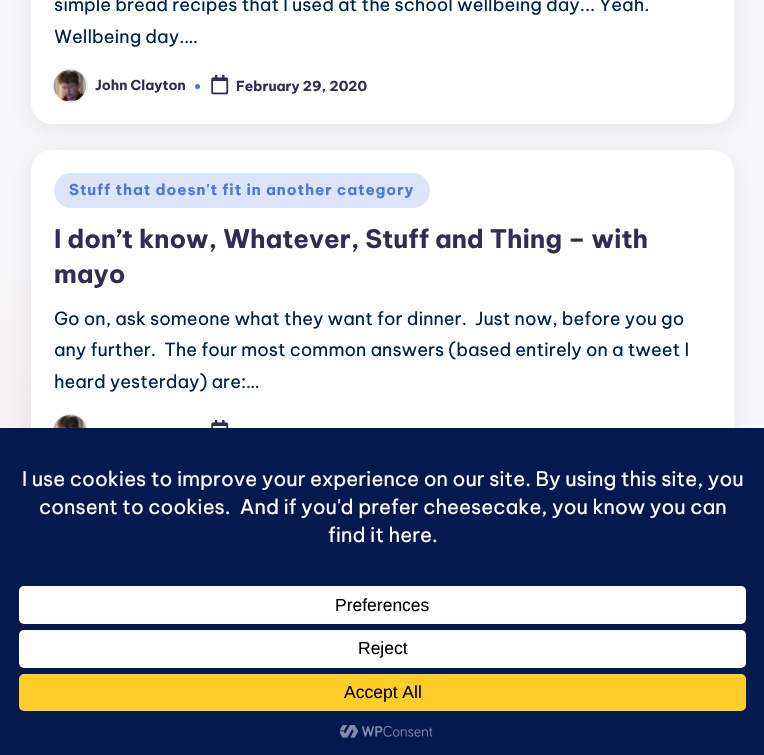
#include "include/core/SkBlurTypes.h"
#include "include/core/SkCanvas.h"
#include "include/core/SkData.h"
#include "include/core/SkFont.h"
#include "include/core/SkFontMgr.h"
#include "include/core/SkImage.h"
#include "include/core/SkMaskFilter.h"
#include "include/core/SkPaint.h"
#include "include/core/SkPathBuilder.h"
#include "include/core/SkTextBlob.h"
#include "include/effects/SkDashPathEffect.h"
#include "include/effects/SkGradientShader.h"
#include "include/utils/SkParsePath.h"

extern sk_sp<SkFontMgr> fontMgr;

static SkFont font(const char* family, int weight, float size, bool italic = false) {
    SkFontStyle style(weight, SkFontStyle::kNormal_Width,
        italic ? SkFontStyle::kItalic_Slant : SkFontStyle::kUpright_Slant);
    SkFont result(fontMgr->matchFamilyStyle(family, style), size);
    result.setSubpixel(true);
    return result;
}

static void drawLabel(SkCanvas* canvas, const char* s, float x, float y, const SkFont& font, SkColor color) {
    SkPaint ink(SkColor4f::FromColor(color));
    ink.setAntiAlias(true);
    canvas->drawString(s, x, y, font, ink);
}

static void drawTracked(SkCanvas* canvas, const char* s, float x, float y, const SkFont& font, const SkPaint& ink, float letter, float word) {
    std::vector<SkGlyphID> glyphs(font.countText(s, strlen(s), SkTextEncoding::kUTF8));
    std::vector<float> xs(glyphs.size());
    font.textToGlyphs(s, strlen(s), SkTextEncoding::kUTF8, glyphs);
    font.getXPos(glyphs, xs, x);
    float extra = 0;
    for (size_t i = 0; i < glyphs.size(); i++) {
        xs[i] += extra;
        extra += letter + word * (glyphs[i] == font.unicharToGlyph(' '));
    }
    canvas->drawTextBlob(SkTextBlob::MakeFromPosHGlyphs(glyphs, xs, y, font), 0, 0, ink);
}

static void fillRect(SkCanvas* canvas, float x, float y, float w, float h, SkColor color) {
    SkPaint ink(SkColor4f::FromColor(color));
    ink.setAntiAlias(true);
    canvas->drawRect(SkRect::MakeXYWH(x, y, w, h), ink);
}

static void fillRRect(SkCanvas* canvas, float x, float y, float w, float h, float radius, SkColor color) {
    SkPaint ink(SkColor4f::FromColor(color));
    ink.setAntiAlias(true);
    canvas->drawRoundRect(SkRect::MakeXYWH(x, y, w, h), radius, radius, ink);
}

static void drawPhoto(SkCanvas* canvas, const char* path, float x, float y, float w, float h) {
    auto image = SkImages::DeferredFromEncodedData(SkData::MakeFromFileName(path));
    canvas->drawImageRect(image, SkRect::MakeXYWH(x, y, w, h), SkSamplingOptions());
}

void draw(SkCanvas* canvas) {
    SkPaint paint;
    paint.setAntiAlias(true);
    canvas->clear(0xFFF7F8F9);
    paint.setColor(0x1A454360);
    paint.setMaskFilter(SkMaskFilter::MakeBlur(kNormal_SkBlurStyle, 12.5f));
    canvas->drawRoundRect(SkRect::MakeXYWH(31, -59, 703, 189), 21, 21, paint);
    paint.setMaskFilter(nullptr);
    canvas->save();
    canvas->clipRect(SkRect::MakeXYWH(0, 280, 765, 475));
    paint.setColor(0xFFF7E3E6);
    paint.setMaskFilter(SkMaskFilter::MakeBlur(kNormal_SkBlurStyle, 80));
    canvas->drawRoundRect(SkRect::MakeXYWH(0, 334, 305, 305), 152.5f, 152.5f, paint);
    paint.setMaskFilter(nullptr);
    canvas->restore();
    fillRRect(canvas, 31, -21, 703, 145, 21, 0xFFFFFFFF);
    SkFont font1 = font("Be Vietnam Pro", 400, 18);
    drawLabel(canvas, "simple bread recipes that I used at the school wellbeing day... Yeah.", 54, 11, font1, 0xFF002050);
    drawLabel(canvas, "Wellbeing day.…", 54, 43, font1, 0xFF002050);
    drawPhoto(canvas, "assets/img1.png", 53, 70, 34, 32);
    paint.setStroke(true);
    paint.setStrokeWidth(1);
    paint.setColor(0x66B9B9B9);
    canvas->drawRoundRect(SkRect::MakeXYWH(53.5f, 69.5f, 34, 33), 16.5f, 16.5f, paint);
    SkFont font2 = font("Be Vietnam Pro", 700, 13.75f);
    drawLabel(canvas, "John Clayton", 95, 90, font2, 0xFF302D55);
    paint.setStroke(false);
    paint.setColor(0xFF4D76DD);
    canvas->drawCircle(197.5f, 86.5f, 2.5f, paint);
    drawPhoto(canvas, "assets/img2.png", 211, 75, 18, 20);
    drawLabel(canvas, "February 29, 2020", 236, 91, font2, 0xFF302D55);
    paint.setColor(0x1A454360);
    paint.setMaskFilter(SkMaskFilter::MakeBlur(kNormal_SkBlurStyle, 12.5f));
    canvas->drawRoundRect(SkRect::MakeXYWH(31, 156, 703, 319), 21, 21, paint);
    paint.setMaskFilter(nullptr);
    fillRRect(canvas, 31, 150, 703, 319, 21, 0xFFFFFFFF);
    fillRRect(canvas, 54, 173, 376, 35, 17.5f, 0xFFDCE4F9);
    SkFont font3 = font("Be Vietnam Pro", 700, 15);
    paint.setColor(0xFF4D76DD);
    drawTracked(canvas, "Stuff that doesn't fit in another category", 69, 195, font3, paint, 0.9f, 0);
    SkFont font4 = font("Be Vietnam Pro", 700, 25.4f);
    drawLabel(canvas, "I don’t know, Whatever, Stuff and Thing – with", 54, 248, font4, 0xFF302D55);
    drawLabel(canvas, "mayo", 54, 283, font4, 0xFF302D55);
    drawLabel(canvas, "Go on, ask someone what they want for dinner.  Just now, before you go", 54, 325, font1, 0xFF002050);
    drawLabel(canvas, "any further.  The four most common answers (based entirely on a tweet I", 54, 356, font1, 0xFF002050);
    drawLabel(canvas, "heard yesterday) are:…", 54, 388, font1, 0xFF002050);
    drawPhoto(canvas, "assets/img3.png", 54, 415, 32, 13);
    paint.setStroke(true);
    paint.setColor(0x66B9B9B9);
    canvas->drawRoundRect(SkRect::MakeXYWH(53.5f, 414.5f, 34, 33), 16.5f, 16.5f, paint);
    drawPhoto(canvas, "assets/img4.png", 211, 420, 18, 8);
    fillRect(canvas, 0, 428, 764, 327, 0xFF04194E);
    SkFont font5 = font("Be Vietnam Pro", 400, 20);
    drawLabel(canvas, "I use cookies to improve your experience on our site. By using this site, you", 22, 486, font5, 0xFFFFFFFF);
    drawLabel(canvas, "consent to cookies.  And if you'd prefer cheesecake, you know you can", 39, 514, font5, 0xFFFFFFFF);
    drawLabel(canvas, "find it here.", 328, 542, font5, 0xFFFFFFFF);
    fillRRect(canvas, 19, 586, 727, 38, 5, 0xFFFFFFFF);
    SkFont font6 = font("Liberation Sans", 400, 17.5f);
    drawLabel(canvas, "Preferences", 335, 611, font6, 0xFF000000);
    fillRRect(canvas, 19, 630, 727, 38, 5, 0xFFFFFFFF);
    drawLabel(canvas, "Reject", 358, 654, font6, 0xFF000000);
    fillRRect(canvas, 19, 674, 727, 37, 5, 0xFFFFCD2A);
    drawLabel(canvas, "Accept All", 344, 698, font6, 0xFF000000);
    drawPhoto(canvas, "assets/img5.png", 339, 725, 94, 13);
}
